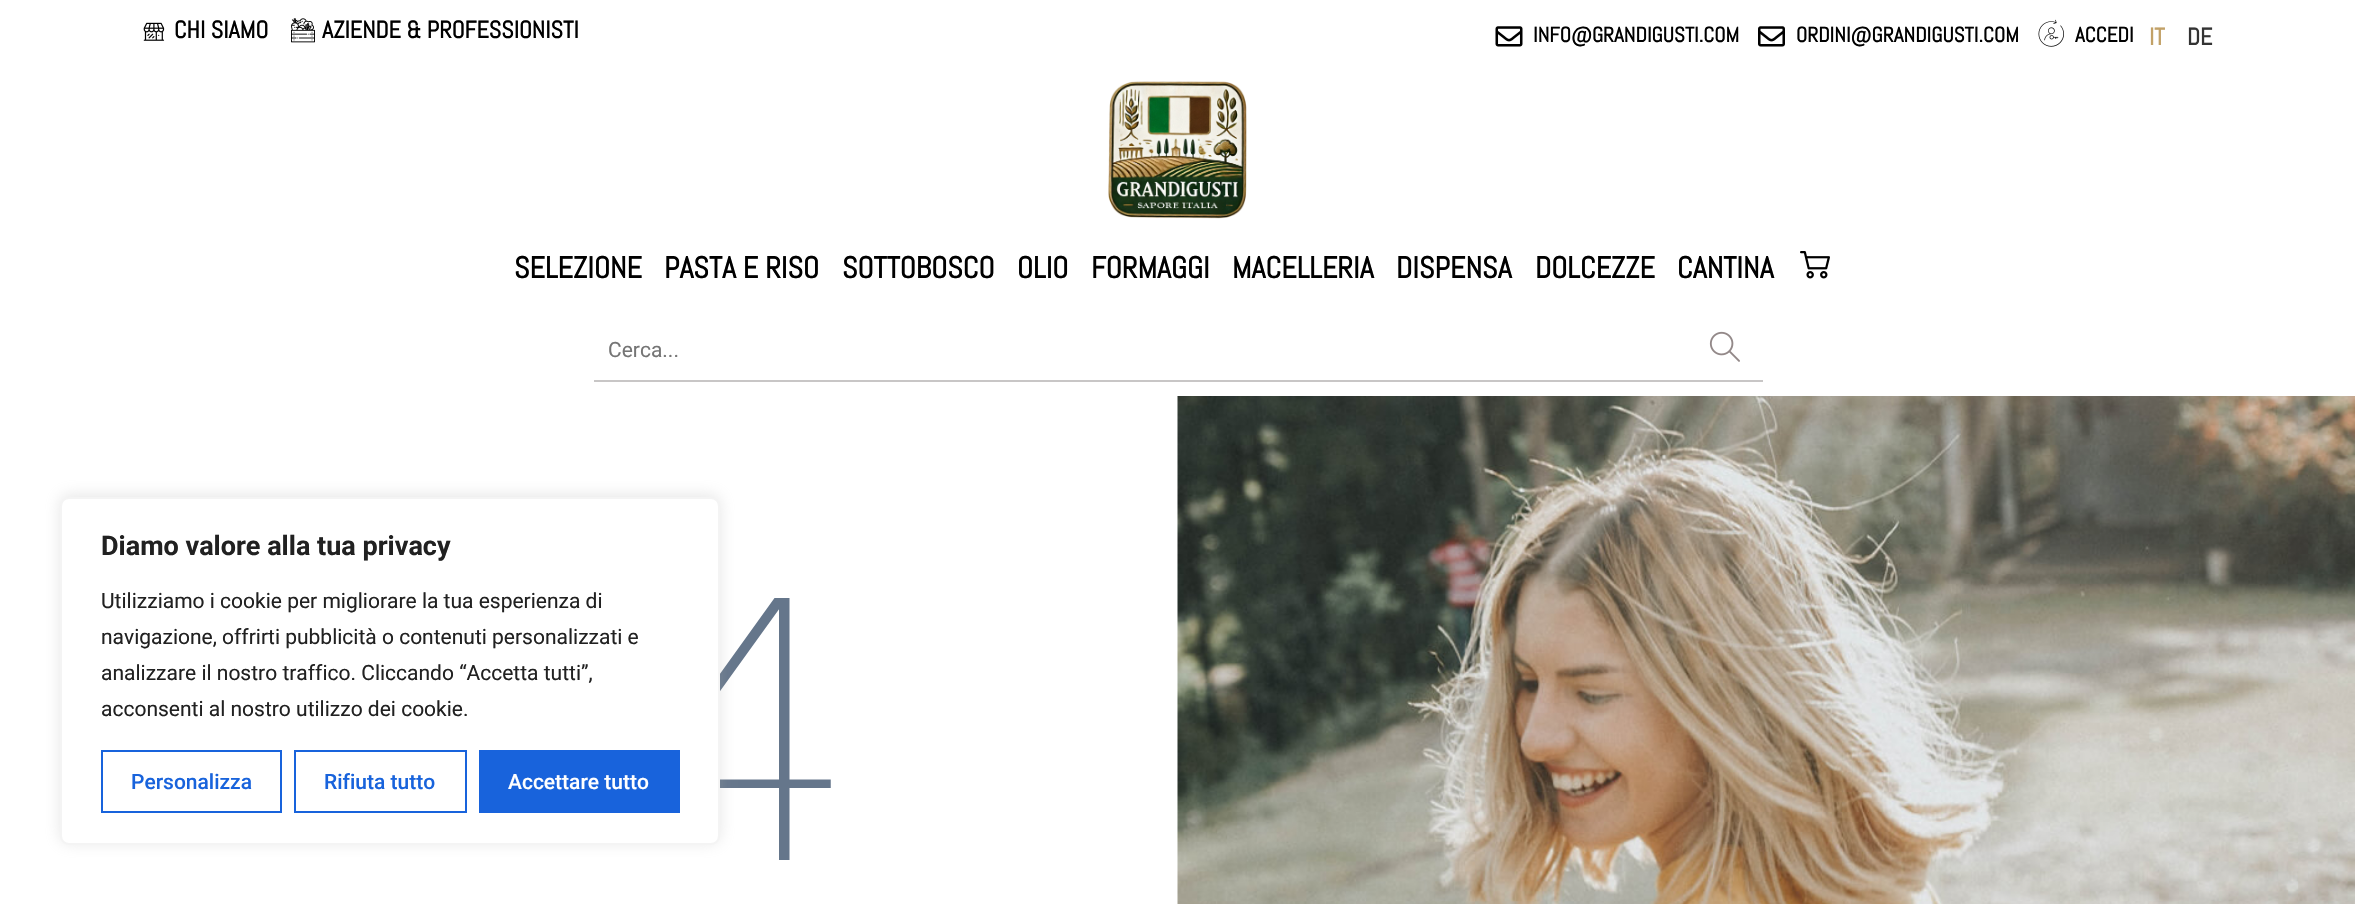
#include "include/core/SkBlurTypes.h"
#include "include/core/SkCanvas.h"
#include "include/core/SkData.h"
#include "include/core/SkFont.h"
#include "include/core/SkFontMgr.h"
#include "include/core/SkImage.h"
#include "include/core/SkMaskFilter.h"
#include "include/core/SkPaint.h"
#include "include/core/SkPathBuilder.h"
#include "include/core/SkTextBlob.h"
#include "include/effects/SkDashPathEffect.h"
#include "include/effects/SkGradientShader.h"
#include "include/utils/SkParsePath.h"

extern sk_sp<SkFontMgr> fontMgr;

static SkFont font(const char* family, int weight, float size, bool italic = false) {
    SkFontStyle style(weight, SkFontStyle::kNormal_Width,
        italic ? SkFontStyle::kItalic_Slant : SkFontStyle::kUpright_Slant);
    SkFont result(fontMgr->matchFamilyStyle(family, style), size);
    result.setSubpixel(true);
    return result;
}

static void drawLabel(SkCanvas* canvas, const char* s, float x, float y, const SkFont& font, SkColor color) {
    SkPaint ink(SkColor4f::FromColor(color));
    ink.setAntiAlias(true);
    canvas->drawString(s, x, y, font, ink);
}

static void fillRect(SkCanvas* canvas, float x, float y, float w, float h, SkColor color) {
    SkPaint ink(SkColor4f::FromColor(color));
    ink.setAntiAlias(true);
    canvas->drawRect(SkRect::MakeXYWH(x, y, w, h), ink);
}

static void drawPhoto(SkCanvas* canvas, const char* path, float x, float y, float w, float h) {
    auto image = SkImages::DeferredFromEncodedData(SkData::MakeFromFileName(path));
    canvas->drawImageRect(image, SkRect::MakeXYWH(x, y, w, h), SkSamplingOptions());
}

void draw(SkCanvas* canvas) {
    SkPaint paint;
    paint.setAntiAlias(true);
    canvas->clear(0xFFFFFFFF);
    drawPhoto(canvas, "assets/img1.png", 143, 22, 22, 19);
    SkFont font1 = font("Abel", 700, 24);
    drawLabel(canvas, "CHI SIAMO", 174, 38, font1, 0xFF000000);
    drawPhoto(canvas, "assets/img2.png", 291, 18, 24, 25);
    drawLabel(canvas, "AZIENDE & PROFESSIONISTI", 322, 38, font1, 0xFF000000);
    drawPhoto(canvas, "assets/img3.png", 1495, 26, 28, 21);
    SkFont font2 = font("Abel", 700, 21);
    drawLabel(canvas, "INFO@GRANDIGUSTI.COM", 1533, 42, font2, 0xFF000000);
    drawPhoto(canvas, "assets/img4.png", 1758, 26, 27, 21);
    drawLabel(canvas, "ORDINI@GRANDIGUSTI.COM", 1796, 42, font2, 0xFF000000);
    drawPhoto(canvas, "assets/img5.png", 2038, 19, 26, 28);
    drawLabel(canvas, "ACCEDI", 2075, 42, font2, 0xFF000000);
    drawLabel(canvas, "IT", 2149, 45, font1, 0xFFC2A167);
    drawLabel(canvas, "DE", 2187, 45, font1, 0xFF333333);
    drawPhoto(canvas, "assets/img6.png", 1108, 81, 139, 138);
    SkFont font3 = font("Abel", 700, 30);
    drawLabel(canvas, "SELEZIONE", 514, 278, font3, 0xFF000000);
    drawLabel(canvas, "PASTA E RISO", 664, 278, font3, 0xFF000000);
    drawLabel(canvas, "SOTTOBOSCO", 842, 278, font3, 0xFF000000);
    drawLabel(canvas, "OLIO", 1017, 278, font3, 0xFF000000);
    drawLabel(canvas, "FORMAGGI", 1091, 278, font3, 0xFF000000);
    drawLabel(canvas, "MACELLERIA", 1232, 278, font3, 0xFF000000);
    drawLabel(canvas, "DISPENSA", 1396, 278, font3, 0xFF000000);
    drawLabel(canvas, "DOLCEZZE", 1535, 278, font3, 0xFF000000);
    drawLabel(canvas, "CANTINA", 1677, 278, font3, 0xFF000000);
    drawPhoto(canvas, "assets/img7.png", 1800, 251, 30, 28);
    fillRect(canvas, 594, 380, 1169, 2, 0xFFC8C6C6);
    SkFont font4 = font("Roboto", 400, 21);
    drawLabel(canvas, "Cerca...", 608, 357, font4, 0xFF757575);
    drawPhoto(canvas, "assets/img8.png", 1709, 331, 31, 31);
    SkFont font5 = font("Prompt", 100, 375);
    drawLabel(canvas, "4", 629, 860, font5, 0xFF65768B);
    drawPhoto(canvas, "assets/img9.png", 1177, 396, 1178, 508);
    paint.setColor(0x4DACABAB);
    paint.setMaskFilter(SkMaskFilter::MakeBlur(kNormal_SkBlurStyle, 7.5f));
    canvas->drawRoundRect(SkRect::MakeXYWH(60, 495, 660, 348), 9, 9, paint);
    paint.setMaskFilter(nullptr);
    paint.setColor(0xFFFFFFFF);
    canvas->drawRoundRect(SkRect::MakeXYWH(61, 498, 658, 346), 8, 8, paint);
    paint.setStroke(true);
    paint.setStrokeWidth(2);
    paint.setColor(0xFFF4F4F4);
    canvas->drawRoundRect(SkRect::MakeXYWH(61, 498, 658, 346), 8, 8, paint);
    SkFont font6 = font("Roboto", 700, 27);
    drawLabel(canvas, "Diamo valore alla tua privacy", 101, 555, font6, 0xFF212121);
    drawLabel(canvas, "Utilizziamo i cookie per migliorare la tua esperienza di", 101, 608, font4, 0xFF212121);
    drawLabel(canvas, "navigazione, offrirti pubblicità o contenuti personalizzati e", 101, 644, font4, 0xFF212121);
    drawLabel(canvas, "analizzare il nostro traffico. Cliccando “Accetta tutti”,", 101, 680, font4, 0xFF212121);
    drawLabel(canvas, "acconsenti al nostro utilizzo dei cookie.", 101, 716, font4, 0xFF212121);
    paint.setColor(0xFF1863DC);
    canvas->drawRect(SkRect::MakeXYWH(102, 751, 179, 61), paint);
    SkFont font7 = font("Roboto", 500, 21);
    drawLabel(canvas, "Personalizza", 131, 789, font7, 0xFF1863DC);
    canvas->drawRect(SkRect::MakeXYWH(295, 751, 171, 61), paint);
    drawLabel(canvas, "Rifiuta tutto", 324, 789, font7, 0xFF1863DC);
    fillRect(canvas, 479, 750, 201, 63, 0xFF1863DC);
    drawLabel(canvas, "Accettare tutto", 508, 789, font7, 0xFFFFFFFF);
}
